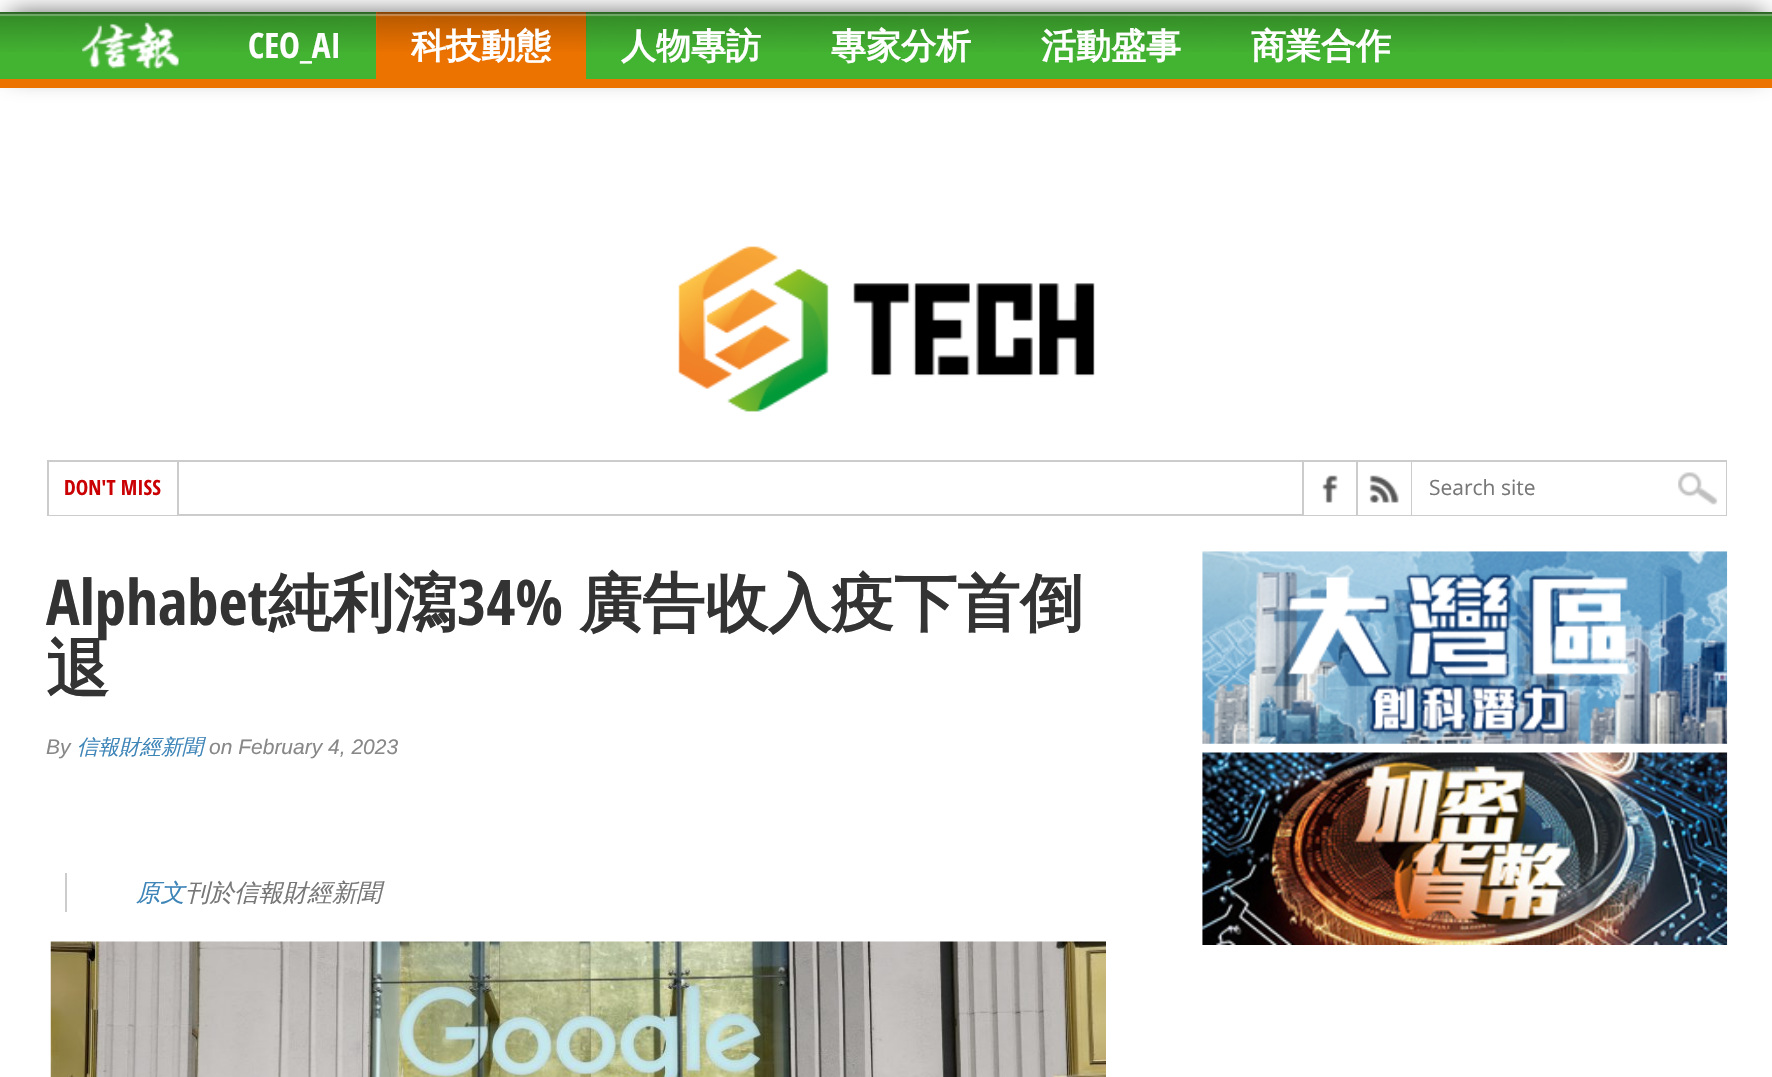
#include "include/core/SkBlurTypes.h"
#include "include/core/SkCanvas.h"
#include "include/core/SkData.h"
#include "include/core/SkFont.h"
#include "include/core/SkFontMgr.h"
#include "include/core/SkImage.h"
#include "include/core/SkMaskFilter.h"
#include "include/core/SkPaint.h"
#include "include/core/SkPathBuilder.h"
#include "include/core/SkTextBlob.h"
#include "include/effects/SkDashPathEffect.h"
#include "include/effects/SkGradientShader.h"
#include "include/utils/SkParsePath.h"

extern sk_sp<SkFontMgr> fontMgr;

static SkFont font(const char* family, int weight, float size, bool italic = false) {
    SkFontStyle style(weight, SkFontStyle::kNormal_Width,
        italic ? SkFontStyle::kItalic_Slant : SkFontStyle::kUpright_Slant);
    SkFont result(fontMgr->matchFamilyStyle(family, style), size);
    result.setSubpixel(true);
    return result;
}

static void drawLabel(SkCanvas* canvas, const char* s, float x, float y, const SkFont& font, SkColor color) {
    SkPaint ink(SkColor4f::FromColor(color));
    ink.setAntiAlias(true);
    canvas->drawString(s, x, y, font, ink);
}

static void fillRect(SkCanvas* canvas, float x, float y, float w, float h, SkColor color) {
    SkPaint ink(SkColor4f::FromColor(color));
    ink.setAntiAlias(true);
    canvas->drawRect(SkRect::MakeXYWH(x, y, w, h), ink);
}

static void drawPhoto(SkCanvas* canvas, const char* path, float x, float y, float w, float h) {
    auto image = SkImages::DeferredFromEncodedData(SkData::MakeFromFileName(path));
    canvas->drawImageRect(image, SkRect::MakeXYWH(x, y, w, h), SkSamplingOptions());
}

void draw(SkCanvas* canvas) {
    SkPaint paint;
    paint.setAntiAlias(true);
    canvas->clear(0xFFFFFFFF);
    paint.setColor(0xFF555555);
    paint.setMaskFilter(SkMaskFilter::MakeBlur(kNormal_SkBlurStyle, 13));
    canvas->drawRect(SkRect::MakeXYWH(9, 14, 1755, 58), paint);
    paint.setMaskFilter(nullptr);
    fillRect(canvas, 0, 12, 1772, 67, 0xFF43B332);
    drawPhoto(canvas, "assets/img1.png", 0, 12, 1772, 40);
    fillRect(canvas, 0, 79, 1772, 9, 0xFFED7300);
    drawPhoto(canvas, "assets/img2.png", 82, 22, 97, 47);
    SkFont font1 = font("Open Sans Condensed", 700, 35);
    drawLabel(canvas, "CEO_AI", 248, 58, font1, 0xFFFFFFFF);
    fillRect(canvas, 376, 12, 210, 67, 0xFFED7300);
    drawPhoto(canvas, "assets/img3.png", 376, 12, 211, 40);
    SkFont font2 = font("WenQuanYi Zen Hei", 700, 35);
    drawLabel(canvas, "科技動態", 411, 58, font2, 0xFFFFFFFF);
    drawLabel(canvas, "人物專訪", 621, 58, font2, 0xFFFFFFFF);
    drawLabel(canvas, "專家分析", 831, 58, font2, 0xFFFFFFFF);
    drawLabel(canvas, "活動盛事", 1041, 58, font2, 0xFFFFFFFF);
    drawLabel(canvas, "商業合作", 1251, 58, font2, 0xFFFFFFFF);
    drawPhoto(canvas, "assets/img4.png", 678, 246, 417, 166);
    paint.setStroke(true);
    paint.setStrokeWidth(2);
    paint.setColor(0xFFCCCCCC);
    canvas->drawRect(SkRect::MakeXYWH(48, 461, 1678, 54), paint);
    fillRect(canvas, 49, 514, 128, 1, 0xFFFFFFFF);
    fillRect(canvas, 177, 462, 2, 53, 0xFFCCCCCC);
    SkFont font3 = font("Open Sans Condensed", 700, 21);
    drawLabel(canvas, "DON'T MISS", 64, 495, font3, 0xFFCA0002);
    fillRect(canvas, 1302, 462, 2, 53, 0xFFCCCCCC);
    fillRect(canvas, 1304, 514, 52, 1, 0xFFFFFFFF);
    drawPhoto(canvas, "assets/img5.png", 1322, 475, 16, 28);
    fillRect(canvas, 1356, 462, 2, 53, 0xFFCCCCCC);
    fillRect(canvas, 1358, 514, 53, 1, 0xFFFFFFFF);
    drawPhoto(canvas, "assets/img6.png", 1369, 475, 30, 28);
    fillRect(canvas, 1411, 462, 1, 53, 0xFFCCCCCC);
    fillRect(canvas, 1412, 462, 314, 53, 0xFFFFFFFF);
    drawPhoto(canvas, "assets/img7.png", 1678, 472, 40, 33);
    SkFont font4 = font("Open Sans", 400, 21);
    drawLabel(canvas, "Search site", 1429, 495, font4, 0xFF777777);
    SkFont font5 = font("Open Sans Condensed", 700, 63);
    drawLabel(canvas, "Alphabet", 46, 625, font5, 0xFF333333);
    SkFont font6 = font("WenQuanYi Zen Hei", 700, 63);
    drawLabel(canvas, "純利瀉", 268, 625, font6, 0xFF333333);
    drawLabel(canvas, "34%", 457, 625, font5, 0xFF333333);
    drawLabel(canvas, "廣告收入疫下首倒", 579, 625, font6, 0xFF333333);
    drawLabel(canvas, "退", 46, 691, font6, 0xFF333333);
    SkFont font7 = font("Liberation Sans", 400, 21, true);
    drawLabel(canvas, "By", 46, 754, font7, 0xFF888888);
    SkFont font8 = font("WenQuanYi Zen Hei", 500, 21, true);
    drawLabel(canvas, "信報財經新聞", 77, 754, font8, 0xFF3E85B8);
    drawLabel(canvas, "on February 4, 2023", 209, 754, font7, 0xFF888888);
    fillRect(canvas, 65, 873, 2, 39, 0xFFCCCCCC);
    SkFont font9 = font("WenQuanYi Zen Hei", 500, 24.5f, true);
    drawLabel(canvas, "原文", 136, 901, font9, 0xFF3E85B8);
    drawLabel(canvas, "刊於信報財經新聞", 185, 901, font9, 0xFF777777);
    drawPhoto(canvas, "assets/img8.png", 50, 941, 1056, 136);
    drawPhoto(canvas, "assets/img9.png", 1202, 551, 526, 193);
    drawPhoto(canvas, "assets/img10.png", 1202, 752, 526, 193);
}
